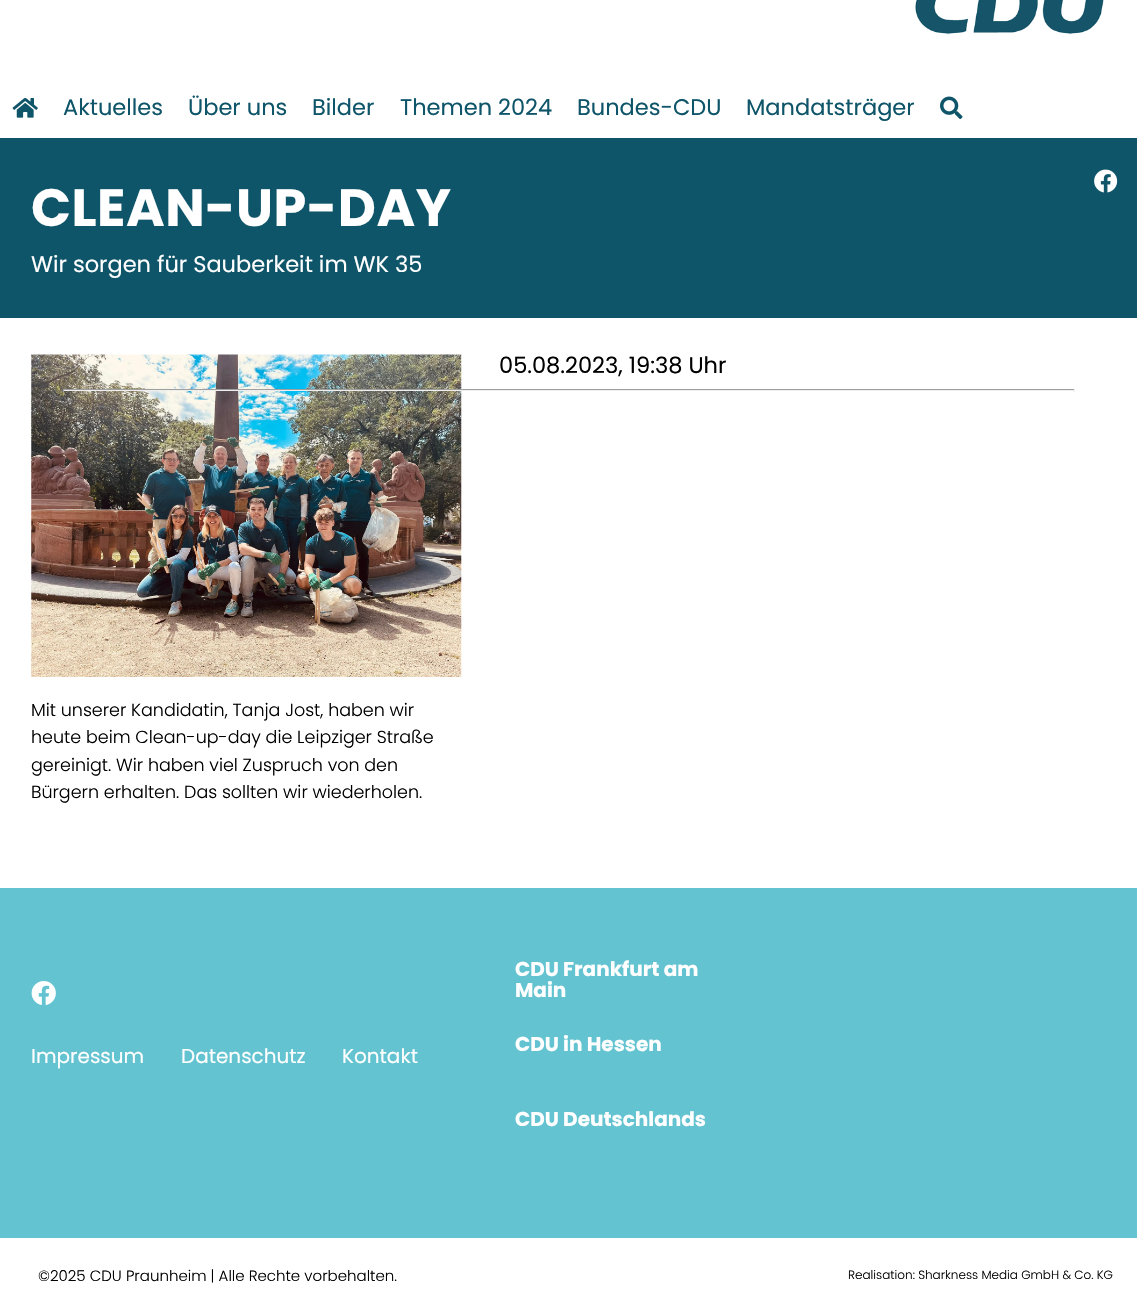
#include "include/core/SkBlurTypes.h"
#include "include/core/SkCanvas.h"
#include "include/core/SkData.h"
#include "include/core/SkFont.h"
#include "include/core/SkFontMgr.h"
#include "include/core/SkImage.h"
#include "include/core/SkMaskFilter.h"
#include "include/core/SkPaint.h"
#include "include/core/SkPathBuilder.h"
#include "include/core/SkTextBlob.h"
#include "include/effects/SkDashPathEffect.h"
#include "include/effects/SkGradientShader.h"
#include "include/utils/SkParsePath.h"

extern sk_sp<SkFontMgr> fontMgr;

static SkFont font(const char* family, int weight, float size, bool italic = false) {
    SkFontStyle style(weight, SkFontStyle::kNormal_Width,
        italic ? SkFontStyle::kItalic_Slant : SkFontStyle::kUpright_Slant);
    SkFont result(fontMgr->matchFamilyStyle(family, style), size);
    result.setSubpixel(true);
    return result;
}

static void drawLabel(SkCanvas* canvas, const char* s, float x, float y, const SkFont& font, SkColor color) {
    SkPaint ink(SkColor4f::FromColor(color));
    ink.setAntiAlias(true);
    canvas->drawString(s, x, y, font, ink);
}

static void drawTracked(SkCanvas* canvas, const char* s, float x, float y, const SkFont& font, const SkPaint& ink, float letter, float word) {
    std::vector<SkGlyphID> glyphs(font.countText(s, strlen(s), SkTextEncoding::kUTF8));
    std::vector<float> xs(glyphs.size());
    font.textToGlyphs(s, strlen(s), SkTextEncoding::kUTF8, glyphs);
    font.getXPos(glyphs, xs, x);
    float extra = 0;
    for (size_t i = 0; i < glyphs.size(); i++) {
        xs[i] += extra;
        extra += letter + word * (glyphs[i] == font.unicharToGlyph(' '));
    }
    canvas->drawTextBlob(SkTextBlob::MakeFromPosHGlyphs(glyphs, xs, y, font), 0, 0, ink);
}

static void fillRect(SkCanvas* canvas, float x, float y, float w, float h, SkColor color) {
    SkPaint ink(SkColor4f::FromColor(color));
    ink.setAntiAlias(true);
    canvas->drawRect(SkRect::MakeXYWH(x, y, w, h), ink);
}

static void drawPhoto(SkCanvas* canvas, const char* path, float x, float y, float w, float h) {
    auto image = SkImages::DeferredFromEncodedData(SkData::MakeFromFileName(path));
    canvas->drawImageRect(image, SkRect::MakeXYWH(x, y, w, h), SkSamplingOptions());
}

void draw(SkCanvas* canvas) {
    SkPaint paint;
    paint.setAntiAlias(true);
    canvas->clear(0xFFFFFFFF);
    drawPhoto(canvas, "assets/img1.png", 915, 0, 189, 35);
    drawPhoto(canvas, "assets/img2.png", 12, 98, 26, 20);
    SkFont font1 = font("Poppins", 400, 22.5f);
    drawLabel(canvas, "Aktuelles", 63, 115, font1, 0xFF0F5569);
    drawLabel(canvas, "Über uns", 188, 115, font1, 0xFF0F5569);
    drawLabel(canvas, "Bilder", 312, 115, font1, 0xFF0F5569);
    drawLabel(canvas, "Themen 2024", 400, 115, font1, 0xFF0F5569);
    drawLabel(canvas, "Bundes-CDU", 577, 115, font1, 0xFF0F5569);
    drawLabel(canvas, "Mandatsträger", 746, 115, font1, 0xFF0F5569);
    drawPhoto(canvas, "assets/img3.png", 940, 96, 23, 23);
    fillRect(canvas, 0, 138, 1137, 180, 0xFF0F5569);
    drawPhoto(canvas, "assets/img4.png", 1094, 169, 24, 24);
    SkFont font2 = font("Poppins", 700, 52.5f);
    paint.setColor(0xFFFFFFFF);
    drawTracked(canvas, "CLEAN-UP-DAY", 31, 226, font2, paint, 0.5f, 0);
    drawLabel(canvas, "Wir sorgen für Sauberkeit im WK 35", 31, 272, font1, 0xFFFFFFFF);
    drawLabel(canvas, "05.08.2023, 19:38 Uhr", 499, 373, font1, 0xFF000000);
    drawPhoto(canvas, "assets/img5.png", 31, 354, 431, 323);
    fillRect(canvas, 63, 389, 1012, 1, 0xFF9F9F9F);
    fillRect(canvas, 1074, 389, 1, 3, 0xFFEEEEEE);
    fillRect(canvas, 63, 390, 1012, 1, 0xFFEEEEEE);
    fillRect(canvas, 63, 389, 1, 3, 0xFF9F9F9F);
    SkFont font3 = font("Poppins", 300, 17.5f);
    drawLabel(canvas, "Mit unserer Kandidatin, Tanja Jost, haben wir", 31, 716, font3, 0xFF000000);
    drawLabel(canvas, "heute beim Clean-up-day die Leipziger Straße", 31, 743, font3, 0xFF000000);
    drawLabel(canvas, "gereinigt. Wir haben viel Zuspruch von den", 31, 771, font3, 0xFF000000);
    drawLabel(canvas, "Bürgern erhalten. Das sollten wir wiederholen.", 31, 798, font3, 0xFF000000);
    fillRect(canvas, 0, 888, 1137, 350, 0xFF63C3D1);
    drawPhoto(canvas, "assets/img6.png", 31, 981, 25, 24);
    SkFont font4 = font("Poppins", 400, 20);
    drawLabel(canvas, "Impressum", 31, 1063, font4, 0xFFFFFFFF);
    drawLabel(canvas, "Datenschutz", 181, 1063, font4, 0xFFFFFFFF);
    drawLabel(canvas, "Kontakt", 342, 1063, font4, 0xFFFFFFFF);
    SkFont font5 = font("Poppins", 700, 20);
    drawLabel(canvas, "CDU Frankfurt am", 515, 976, font5, 0xFFFFFFFF);
    drawLabel(canvas, "Main", 515, 997, font5, 0xFFFFFFFF);
    drawLabel(canvas, "CDU in Hessen", 515, 1051, font5, 0xFFFFFFFF);
    drawLabel(canvas, "CDU Deutschlands", 515, 1126, font5, 0xFFFFFFFF);
    SkFont font6 = font("Poppins", 300, 15);
    drawLabel(canvas, "©2025 CDU Praunheim | Alle Rechte vorbehalten.", 38, 1281, font6, 0xFF000000);
    SkFont font7 = font("Poppins", 300, 12);
    drawLabel(canvas, "Realisation: Sharkness Media GmbH & Co. KG", 848, 1279, font7, 0xFF000000);
}
